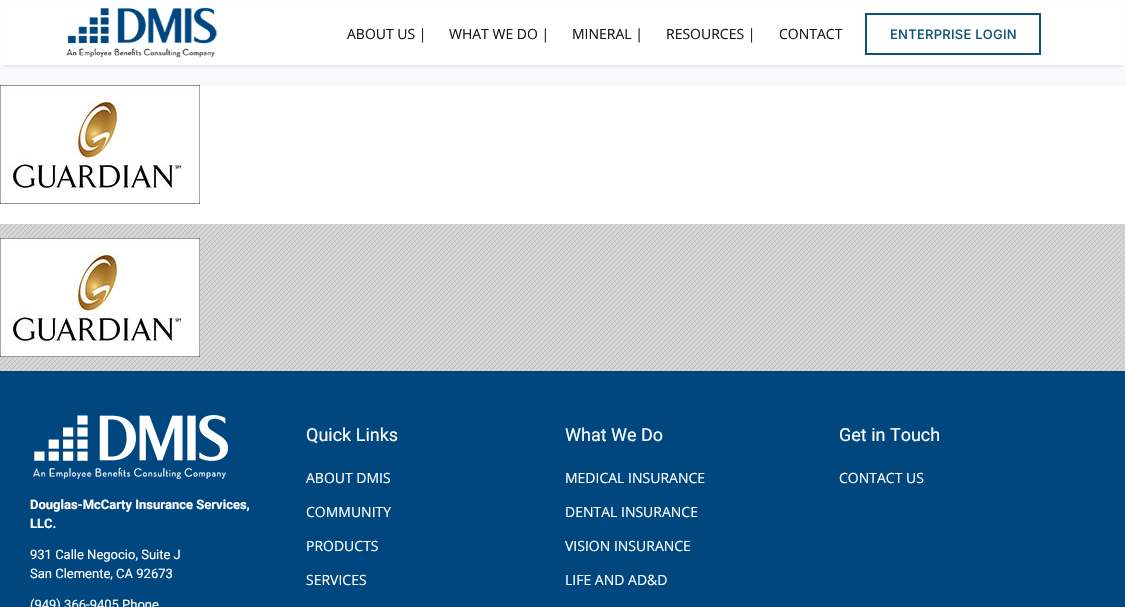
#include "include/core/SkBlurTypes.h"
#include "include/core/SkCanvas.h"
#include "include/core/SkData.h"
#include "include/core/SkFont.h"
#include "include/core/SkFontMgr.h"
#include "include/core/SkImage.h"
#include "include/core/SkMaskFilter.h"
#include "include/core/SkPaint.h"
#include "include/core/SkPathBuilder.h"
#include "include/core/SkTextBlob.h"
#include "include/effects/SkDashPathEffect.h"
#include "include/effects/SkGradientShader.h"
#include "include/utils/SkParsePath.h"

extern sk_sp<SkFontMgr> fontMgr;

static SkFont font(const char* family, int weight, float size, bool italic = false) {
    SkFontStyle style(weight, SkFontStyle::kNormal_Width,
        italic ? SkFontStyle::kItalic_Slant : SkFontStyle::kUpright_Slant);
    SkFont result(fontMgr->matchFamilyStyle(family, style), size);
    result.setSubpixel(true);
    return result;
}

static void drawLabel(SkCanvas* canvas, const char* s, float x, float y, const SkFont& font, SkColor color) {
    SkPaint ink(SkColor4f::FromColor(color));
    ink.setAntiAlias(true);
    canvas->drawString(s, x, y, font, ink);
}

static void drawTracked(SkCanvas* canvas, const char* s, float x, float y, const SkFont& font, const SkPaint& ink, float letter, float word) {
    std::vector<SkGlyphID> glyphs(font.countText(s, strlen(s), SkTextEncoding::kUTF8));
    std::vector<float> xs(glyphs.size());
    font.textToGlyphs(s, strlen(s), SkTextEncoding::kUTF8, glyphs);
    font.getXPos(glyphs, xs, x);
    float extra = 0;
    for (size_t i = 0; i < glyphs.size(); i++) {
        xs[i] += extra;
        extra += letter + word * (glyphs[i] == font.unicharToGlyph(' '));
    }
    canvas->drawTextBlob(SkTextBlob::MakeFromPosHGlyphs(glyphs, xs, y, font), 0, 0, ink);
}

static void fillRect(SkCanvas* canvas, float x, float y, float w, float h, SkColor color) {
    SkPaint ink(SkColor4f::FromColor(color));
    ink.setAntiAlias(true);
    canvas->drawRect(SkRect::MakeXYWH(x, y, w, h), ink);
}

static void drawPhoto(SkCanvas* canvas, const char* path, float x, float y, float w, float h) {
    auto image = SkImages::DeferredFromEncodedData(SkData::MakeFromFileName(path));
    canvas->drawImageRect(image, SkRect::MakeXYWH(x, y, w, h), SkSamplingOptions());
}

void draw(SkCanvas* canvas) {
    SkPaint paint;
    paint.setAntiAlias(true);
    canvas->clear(0xFFFFFFFF);
    drawPhoto(canvas, "assets/img1.png", 0, 224, 1125, 147);
    fillRect(canvas, 0, 65, 1125, 19, 0xFFF9F9FB);
    paint.setColor(0x1F000000);
    paint.setMaskFilter(SkMaskFilter::MakeBlur(kNormal_SkBlurStyle, 1.5f));
    canvas->drawRect(SkRect::MakeXYWH(3, 7, 1119, 59), paint);
    paint.setMaskFilter(nullptr);
    fillRect(canvas, 1, 5, 1123, 60, 0xFFFFFFFF);
    drawPhoto(canvas, "assets/img2.png", 66, 7, 151, 51);
    SkFont font1 = font("Open Sans", 400, 14);
    drawLabel(canvas, "ABOUT US |", 347, 39, font1, 0xFF141617);
    drawLabel(canvas, "WHAT WE DO |", 449, 39, font1, 0xFF141617);
    drawLabel(canvas, "MINERAL |", 572, 39, font1, 0xFF141617);
    drawLabel(canvas, "RESOURCES |", 666, 39, font1, 0xFF141617);
    drawLabel(canvas, "CONTACT", 779, 39, font1, 0xFF141617);
    paint.setStroke(true);
    paint.setStrokeWidth(2);
    paint.setColor(0xFF105378);
    canvas->drawRect(SkRect::MakeXYWH(866, 14, 174, 40), paint);
    SkFont font2 = font("Inter", 500, 13);
    paint.setStroke(false);
    drawTracked(canvas, "ENTERPRISE LOGIN", 890, 39, font2, paint, 0.25f, 0);
    fillRect(canvas, 0, 84, 1125, 1, 0xFFF2F2F2);
    drawPhoto(canvas, "assets/img3.png", 0, 85, 200, 119);
    drawPhoto(canvas, "assets/img3.png", 0, 238, 200, 119);
    fillRect(canvas, 0, 371, 1125, 236, 0xFF00467F);
    SkFont font3 = font("Roboto", 400, 18);
    drawLabel(canvas, "Quick Links", 306, 441, font3, 0xFFFFFFFF);
    drawLabel(canvas, "ABOUT DMIS", 306, 483, font1, 0xFFFFFFFF);
    drawLabel(canvas, "COMMUNITY", 306, 517, font1, 0xFFFFFFFF);
    drawLabel(canvas, "PRODUCTS", 306, 551, font1, 0xFFFFFFFF);
    drawLabel(canvas, "SERVICES", 306, 585, font1, 0xFFFFFFFF);
    drawLabel(canvas, "What We Do", 565, 441, font3, 0xFFFFFFFF);
    drawLabel(canvas, "MEDICAL INSURANCE", 565, 483, font1, 0xFFFFFFFF);
    drawLabel(canvas, "DENTAL INSURANCE", 565, 517, font1, 0xFFFFFFFF);
    drawLabel(canvas, "VISION INSURANCE", 565, 551, font1, 0xFFFFFFFF);
    drawLabel(canvas, "LIFE AND AD&D", 565, 585, font1, 0xFFFFFFFF);
    drawLabel(canvas, "Get in Touch", 839, 441, font3, 0xFFFFFFFF);
    drawLabel(canvas, "CONTACT US", 839, 483, font1, 0xFFFFFFFF);
    drawPhoto(canvas, "assets/img4.png", 33, 415, 195, 64);
    SkFont font4 = font("Roboto", 700, 13);
    drawLabel(canvas, "Douglas-McCarty Insurance Services,", 30, 509, font4, 0xFFFFFFFF);
    drawLabel(canvas, "LLC.", 30, 528, font4, 0xFFFFFFFF);
    SkFont font5 = font("Roboto", 400, 13);
    drawLabel(canvas, "931 Calle Negocio, Suite J", 30, 559, font5, 0xFFFFFFFF);
    drawLabel(canvas, "San Clemente, CA 92673", 30, 578, font5, 0xFFFFFFFF);
    drawLabel(canvas, "(949) 366-9405 Phone", 30, 609, font5, 0xFFFFFFFF);
}
